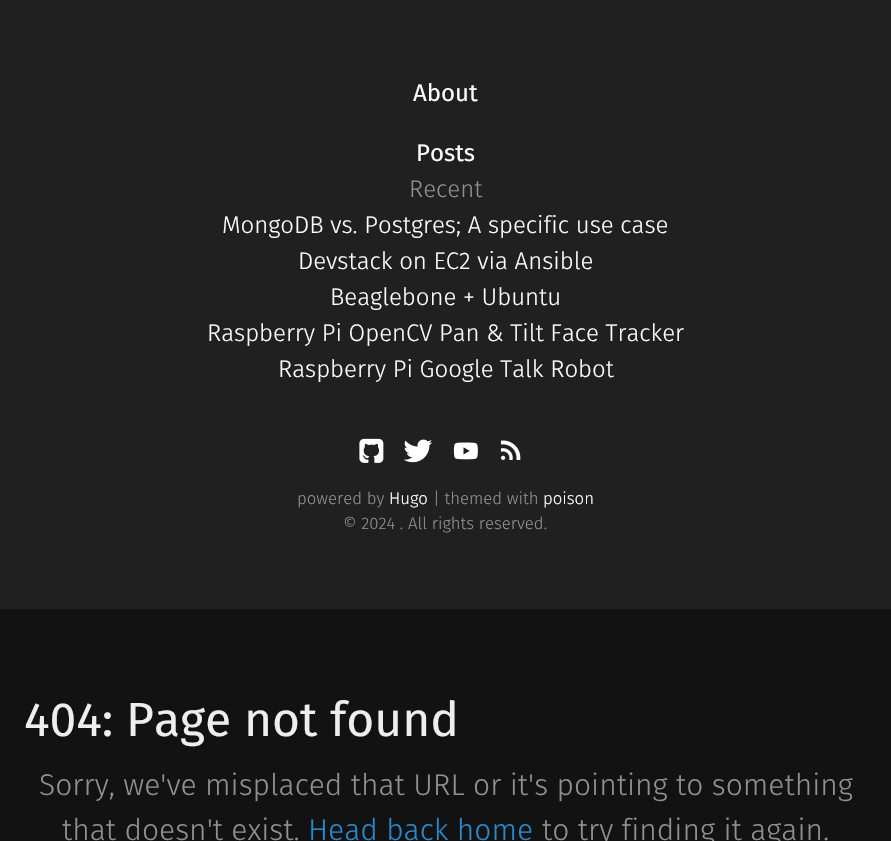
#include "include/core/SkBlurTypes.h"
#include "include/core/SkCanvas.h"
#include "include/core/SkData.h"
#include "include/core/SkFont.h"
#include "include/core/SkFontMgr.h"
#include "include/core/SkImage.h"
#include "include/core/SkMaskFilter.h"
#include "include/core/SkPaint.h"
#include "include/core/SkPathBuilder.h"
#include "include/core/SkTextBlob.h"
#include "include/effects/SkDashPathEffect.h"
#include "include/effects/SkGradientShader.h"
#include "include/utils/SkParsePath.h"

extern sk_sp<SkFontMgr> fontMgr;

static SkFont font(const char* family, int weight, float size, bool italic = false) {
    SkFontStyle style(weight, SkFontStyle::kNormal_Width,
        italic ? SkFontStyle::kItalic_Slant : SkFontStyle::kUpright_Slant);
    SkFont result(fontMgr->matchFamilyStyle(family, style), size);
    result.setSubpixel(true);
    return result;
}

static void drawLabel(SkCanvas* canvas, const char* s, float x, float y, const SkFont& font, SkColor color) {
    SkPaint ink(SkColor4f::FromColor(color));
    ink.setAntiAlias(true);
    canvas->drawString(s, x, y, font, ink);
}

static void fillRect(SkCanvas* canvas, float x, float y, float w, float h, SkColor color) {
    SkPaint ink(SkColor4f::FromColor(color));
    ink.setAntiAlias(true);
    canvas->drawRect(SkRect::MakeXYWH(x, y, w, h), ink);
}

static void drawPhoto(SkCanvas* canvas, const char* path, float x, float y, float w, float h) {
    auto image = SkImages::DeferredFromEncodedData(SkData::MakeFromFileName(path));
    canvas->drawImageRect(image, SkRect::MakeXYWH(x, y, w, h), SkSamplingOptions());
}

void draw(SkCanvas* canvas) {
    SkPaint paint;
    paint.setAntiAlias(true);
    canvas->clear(0xFF121212);
    fillRect(canvas, 0, 0, 891, 609, 0xFF202020);
    SkFont font1 = font("Fira Sans", 400, 24);
    drawLabel(canvas, "About", 413, 101, font1, 0xFFFFFFFF);
    drawLabel(canvas, "Posts", 416, 161, font1, 0xFFFFFFFF);
    SkFont font2 = font("Fira Sans", 300, 24);
    drawLabel(canvas, "Recent", 409, 197, font2, 0xFF909090);
    drawLabel(canvas, "MongoDB vs. Postgres; A specific use case", 222, 233, font2, 0xFFFFFFFF);
    drawLabel(canvas, "Devstack on EC2 via Ansible", 298, 269, font2, 0xFFFFFFFF);
    drawLabel(canvas, "Beaglebone + Ubuntu", 330, 305, font2, 0xFFFFFFFF);
    drawLabel(canvas, "Raspberry Pi OpenCV Pan & Tilt Face Tracker", 207, 341, font2, 0xFFFFFFFF);
    drawLabel(canvas, "Raspberry Pi Google Talk Robot", 278, 377, font2, 0xFFFFFFFF);
    drawPhoto(canvas, "assets/img1.png", 359, 438, 25, 25);
    drawPhoto(canvas, "assets/img2.png", 404, 439, 28, 24);
    drawPhoto(canvas, "assets/img3.png", 453, 442, 25, 18);
    drawPhoto(canvas, "assets/img4.png", 500, 440, 21, 20);
    SkFont font3 = font("Fira Sans", 300, 16.75f);
    drawLabel(canvas, "powered by", 297, 504, font3, 0xFF909090);
    drawLabel(canvas, "Hugo", 389, 504, font3, 0xFFFFFFFF);
    drawLabel(canvas, "| themed with", 433, 504, font3, 0xFF909090);
    drawLabel(canvas, "poison", 543, 504, font3, 0xFFFFFFFF);
    drawLabel(canvas, "© 2024 . All rights reserved.", 343, 529, font3, 0xFF909090);
    SkFont font4 = font("Fira Sans", 400, 48);
    drawLabel(canvas, "404: Page not found", 24, 736, font4, 0xFFEEEEEE);
    SkFont font5 = font("Fira Sans", 300, 30);
    drawLabel(canvas, "Sorry, we've misplaced that URL or it's pointing to something", 39, 795, font5, 0xFF909090);
    drawLabel(canvas, "that doesn't exist.", 62, 840, font5, 0xFF909090);
    drawLabel(canvas, "Head back home", 308, 840, font5, 0xFF268BD2);
    drawLabel(canvas, "to try finding it again.", 542, 840, font5, 0xFF909090);
}
